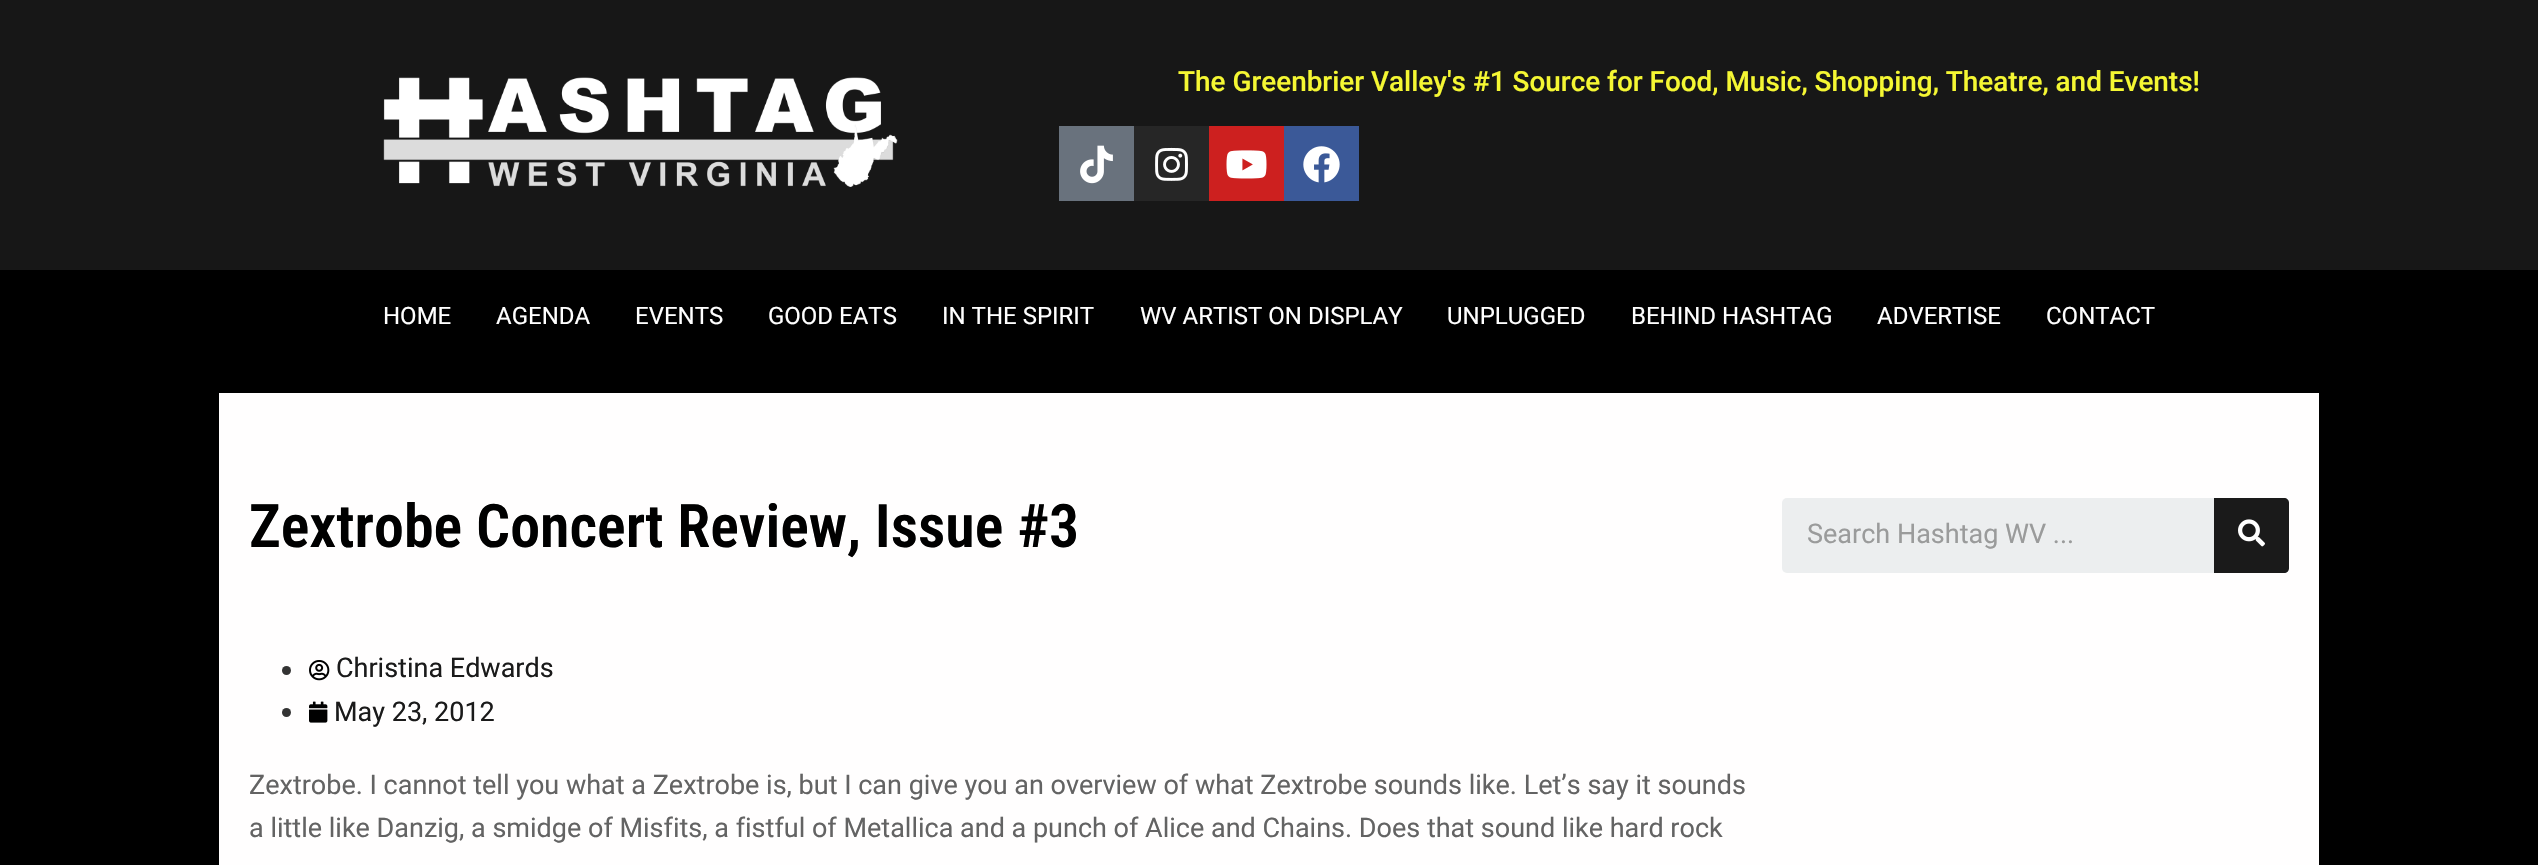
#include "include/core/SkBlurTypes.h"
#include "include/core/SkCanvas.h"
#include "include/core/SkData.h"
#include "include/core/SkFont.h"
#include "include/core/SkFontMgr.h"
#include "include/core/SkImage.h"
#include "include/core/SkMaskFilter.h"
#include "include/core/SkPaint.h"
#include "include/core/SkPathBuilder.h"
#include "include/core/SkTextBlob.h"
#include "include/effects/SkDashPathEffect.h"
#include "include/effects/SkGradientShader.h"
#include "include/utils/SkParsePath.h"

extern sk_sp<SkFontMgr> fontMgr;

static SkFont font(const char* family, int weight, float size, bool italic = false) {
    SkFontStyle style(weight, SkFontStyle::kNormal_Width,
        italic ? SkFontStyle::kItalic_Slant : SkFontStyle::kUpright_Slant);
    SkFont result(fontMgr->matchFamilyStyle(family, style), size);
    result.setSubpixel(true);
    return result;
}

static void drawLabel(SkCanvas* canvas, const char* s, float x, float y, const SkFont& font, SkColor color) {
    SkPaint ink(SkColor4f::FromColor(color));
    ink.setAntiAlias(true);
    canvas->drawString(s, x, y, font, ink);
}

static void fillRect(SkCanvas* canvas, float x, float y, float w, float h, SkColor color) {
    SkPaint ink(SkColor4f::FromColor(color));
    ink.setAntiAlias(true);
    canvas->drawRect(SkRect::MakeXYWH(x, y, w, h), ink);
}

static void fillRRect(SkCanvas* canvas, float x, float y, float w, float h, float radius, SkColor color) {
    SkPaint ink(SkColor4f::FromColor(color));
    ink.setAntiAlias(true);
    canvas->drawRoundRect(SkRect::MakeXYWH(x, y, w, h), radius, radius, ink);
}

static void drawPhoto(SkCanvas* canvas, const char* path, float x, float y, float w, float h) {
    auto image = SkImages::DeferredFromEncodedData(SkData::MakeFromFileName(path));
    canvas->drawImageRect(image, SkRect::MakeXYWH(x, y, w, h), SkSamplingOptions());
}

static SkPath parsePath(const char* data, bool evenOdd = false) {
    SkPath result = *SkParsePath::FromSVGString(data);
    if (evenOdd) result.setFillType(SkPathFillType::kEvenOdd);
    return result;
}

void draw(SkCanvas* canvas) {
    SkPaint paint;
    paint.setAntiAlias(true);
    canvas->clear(0xFF000000);
    fillRect(canvas, 0, 0, 2538, 270, 0xFF171717);
    drawPhoto(canvas, "assets/img1.png", 383, 77, 515, 110);
    SkFont font1 = font("Roboto", 500, 27.9f);
    drawLabel(canvas, "The Greenbrier Valley's #1 Source for Food, Music, Shopping, Theatre, and Events!", 1178, 91, font1, 0xFFF5F733);
    fillRect(canvas, 1059, 126, 75, 75, 0xFF69727D);
    drawPhoto(canvas, "assets/img2.png", 1080, 145, 33, 39);
    fillRect(canvas, 1134, 126, 75, 75, 0xFF262626);
    drawPhoto(canvas, "assets/img3.png", 1155, 147, 33, 34);
    fillRect(canvas, 1209, 126, 75, 75, 0xFFCD201F);
    drawPhoto(canvas, "assets/img4.png", 1226, 150, 41, 29);
    fillRect(canvas, 1284, 126, 75, 75, 0xFF3B5998);
    drawPhoto(canvas, "assets/img5.png", 1303, 146, 37, 37);
    SkFont font2 = font("Roboto", 400, 24);
    drawLabel(canvas, "HOME", 383, 324, font2, 0xFFFFFFFF);
    drawLabel(canvas, "AGENDA", 496, 324, font2, 0xFFFFFFFF);
    drawLabel(canvas, "EVENTS", 635, 324, font2, 0xFFFFFFFF);
    drawLabel(canvas, "GOOD EATS", 768, 324, font2, 0xFFFFFFFF);
    drawLabel(canvas, "IN THE SPIRIT", 942, 324, font2, 0xFFFFFFFF);
    drawLabel(canvas, "WV ARTIST ON DISPLAY", 1140, 324, font2, 0xFFFFFFFF);
    drawLabel(canvas, "UNPLUGGED", 1447, 324, font2, 0xFFFFFFFF);
    drawLabel(canvas, "BEHIND HASHTAG", 1631, 324, font2, 0xFFFFFFFF);
    drawLabel(canvas, "ADVERTISE", 1877, 324, font2, 0xFFFFFFFF);
    drawLabel(canvas, "CONTACT", 2046, 324, font2, 0xFFFFFFFF);
    fillRect(canvas, 219, 393, 2100, 472, 0xFFFFFEFE);
    SkFont font3 = font("Roboto Condensed", 600, 60);
    drawLabel(canvas, "Zextrobe Concert Review, Issue #3", 249, 547, font3, 0xFF000000);
    paint.setColor(0xFF333333);
    canvas->drawCircle(286.5f, 670.5f, 4.5f, paint);
    drawPhoto(canvas, "assets/img6.png", 309, 660, 21, 21);
    SkFont font4 = font("Roboto", 400, 27);
    drawLabel(canvas, "Christina Edwards", 336, 677, font4, 0xFF1A1A1A);
    canvas->drawCircle(286.5f, 712.5f, 4.5f, paint);
    drawPhoto(canvas, "assets/img7.png", 309, 701, 19, 22);
    drawLabel(canvas, "May 23, 2012", 334, 721, font4, 0xFF1A1A1A);
    drawLabel(canvas, "Zextrobe. I cannot tell you what a Zextrobe is, but I can give you an overview of what Zextrobe sounds like. Let’s say it sounds", 249, 794, font4, 0xFF636363);
    drawLabel(canvas, "a little like Danzig, a smidge of Misfits, a fistful of Metallica and a punch of Alice and Chains. Does that sound like hard rock", 249, 837, font4, 0xFF636363);
    fillRRect(canvas, 1782, 498, 507, 75, 5, 0xFFECEEEF);
    drawLabel(canvas, "Search Hashtag WV ...", 1807, 543, font4, 0xFF9A9B9B);
    paint.setColor(0xFF1A1A1A);
    canvas->drawPath(parsePath("M2214 498H2284C2287 498 2289 500 2289 503V568C2289 571 2287 573 2284 573H2214Z"), paint);
    drawPhoto(canvas, "assets/img8.png", 2238, 519, 27, 28);
}
